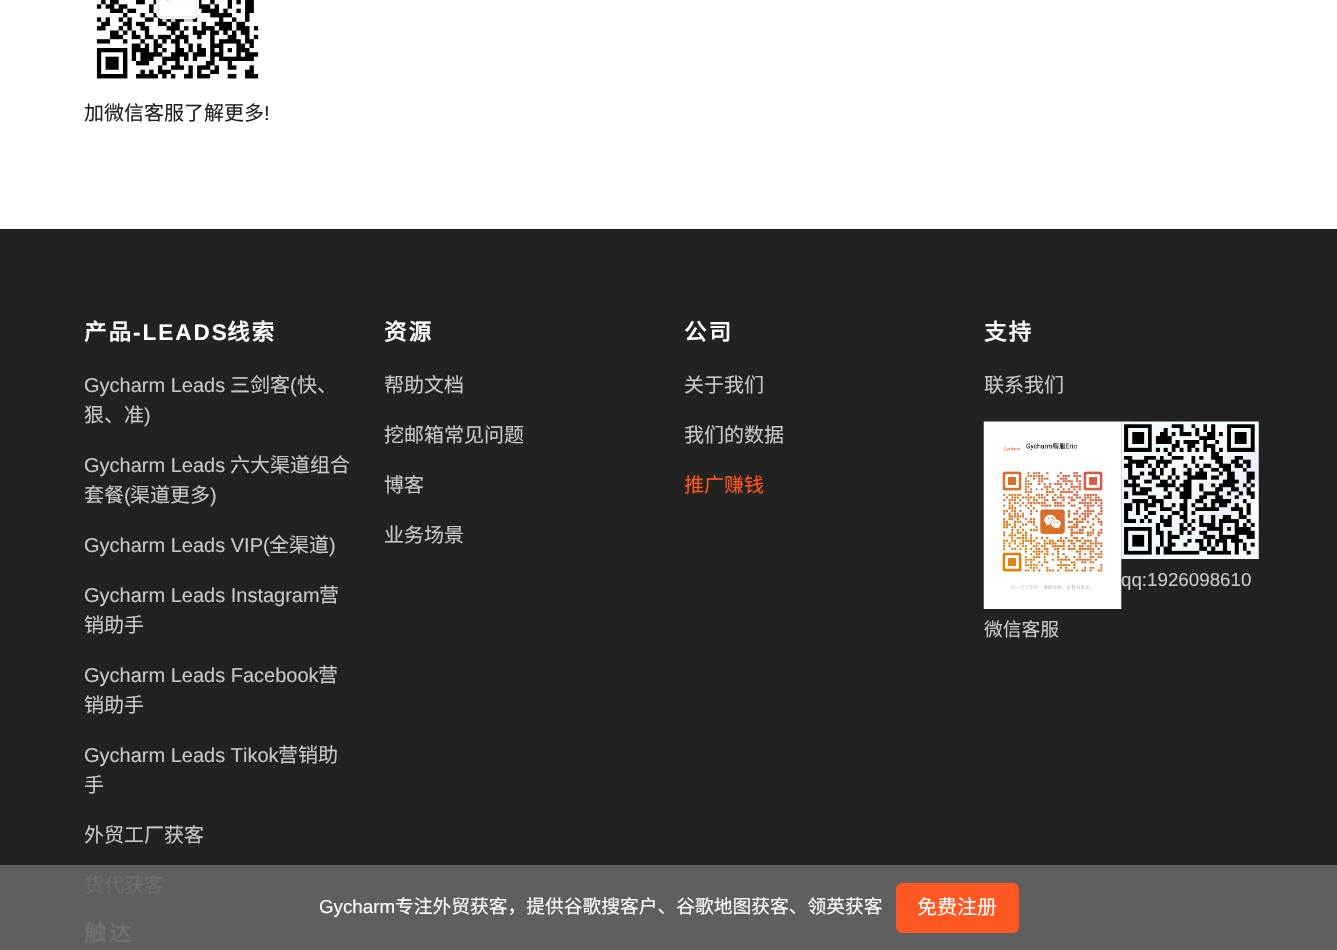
#include "include/core/SkBlurTypes.h"
#include "include/core/SkCanvas.h"
#include "include/core/SkData.h"
#include "include/core/SkFont.h"
#include "include/core/SkFontMgr.h"
#include "include/core/SkImage.h"
#include "include/core/SkMaskFilter.h"
#include "include/core/SkPaint.h"
#include "include/core/SkPathBuilder.h"
#include "include/core/SkTextBlob.h"
#include "include/effects/SkDashPathEffect.h"
#include "include/effects/SkGradientShader.h"
#include "include/utils/SkParsePath.h"

extern sk_sp<SkFontMgr> fontMgr;

static SkFont font(const char* family, int weight, float size, bool italic = false) {
    SkFontStyle style(weight, SkFontStyle::kNormal_Width,
        italic ? SkFontStyle::kItalic_Slant : SkFontStyle::kUpright_Slant);
    SkFont result(fontMgr->matchFamilyStyle(family, style), size);
    result.setSubpixel(true);
    return result;
}

static void drawLabel(SkCanvas* canvas, const char* s, float x, float y, const SkFont& font, SkColor color) {
    SkPaint ink(SkColor4f::FromColor(color));
    ink.setAntiAlias(true);
    canvas->drawString(s, x, y, font, ink);
}

static void drawTracked(SkCanvas* canvas, const char* s, float x, float y, const SkFont& font, const SkPaint& ink, float letter, float word) {
    std::vector<SkGlyphID> glyphs(font.countText(s, strlen(s), SkTextEncoding::kUTF8));
    std::vector<float> xs(glyphs.size());
    font.textToGlyphs(s, strlen(s), SkTextEncoding::kUTF8, glyphs);
    font.getXPos(glyphs, xs, x);
    float extra = 0;
    for (size_t i = 0; i < glyphs.size(); i++) {
        xs[i] += extra;
        extra += letter + word * (glyphs[i] == font.unicharToGlyph(' '));
    }
    canvas->drawTextBlob(SkTextBlob::MakeFromPosHGlyphs(glyphs, xs, y, font), 0, 0, ink);
}

static void fillRect(SkCanvas* canvas, float x, float y, float w, float h, SkColor color) {
    SkPaint ink(SkColor4f::FromColor(color));
    ink.setAntiAlias(true);
    canvas->drawRect(SkRect::MakeXYWH(x, y, w, h), ink);
}

static void fillRRect(SkCanvas* canvas, float x, float y, float w, float h, float radius, SkColor color) {
    SkPaint ink(SkColor4f::FromColor(color));
    ink.setAntiAlias(true);
    canvas->drawRoundRect(SkRect::MakeXYWH(x, y, w, h), radius, radius, ink);
}

static void drawPhoto(SkCanvas* canvas, const char* path, float x, float y, float w, float h) {
    auto image = SkImages::DeferredFromEncodedData(SkData::MakeFromFileName(path));
    canvas->drawImageRect(image, SkRect::MakeXYWH(x, y, w, h), SkSamplingOptions());
}

void draw(SkCanvas* canvas) {
    SkPaint paint;
    paint.setAntiAlias(true);
    canvas->clear(0xFFFFFFFF);
    drawPhoto(canvas, "assets/img1.png", 96, 0, 163, 79);
    SkFont font1 = font("Noto Sans CJK SC", 400, 20);
    drawLabel(canvas, "加微信客服了解更多", 84, 120, font1, 0xFF202020);
    SkFont font2 = font("Liberation Sans", 400, 20);
    drawLabel(canvas, "!", 264, 120, font2, 0xFF202020);
    fillRect(canvas, 0, 229, 1337, 636, 0xFF222222);
    fillRect(canvas, 0, 865, 1337, 85, 0xFF5F5F5F);
    SkFont font3 = font("Noto Sans CJK SC", 700, 22.5f);
    paint.setColor(0xFFFFFFFF);
    drawTracked(canvas, "产品", 84, 340, font3, paint, 2, 0);
    SkFont font4 = font("Liberation Sans", 700, 22.5f);
    drawTracked(canvas, "-LEADS", 133, 340, font4, paint, 2, 0);
    drawTracked(canvas, "线索", 227, 340, font3, paint, 2, 0);
    drawLabel(canvas, "Gycharm Leads", 84, 392, font2, 0xFFC8C8C8);
    drawLabel(canvas, "三剑客", 230, 392, font1, 0xFFC8C8C8);
    drawLabel(canvas, "(", 290, 392, font2, 0xFFC8C8C8);
    drawLabel(canvas, "快、", 297, 392, font1, 0xFFC8C8C8);
    drawLabel(canvas, "狠、准", 84, 422, font1, 0xFFC8C8C8);
    drawLabel(canvas, ")", 144, 422, font2, 0xFFC8C8C8);
    drawLabel(canvas, "Gycharm Leads", 84, 472, font2, 0xFFC8C8C8);
    drawLabel(canvas, "六大渠道组合", 230, 472, font1, 0xFFC8C8C8);
    drawLabel(canvas, "套餐", 84, 502, font1, 0xFFC8C8C8);
    drawLabel(canvas, "(", 124, 502, font2, 0xFFC8C8C8);
    drawLabel(canvas, "渠道更多", 130, 502, font1, 0xFFC8C8C8);
    drawLabel(canvas, ")", 210, 502, font2, 0xFFC8C8C8);
    drawLabel(canvas, "Gycharm Leads VIP(", 84, 552, font2, 0xFFC8C8C8);
    drawLabel(canvas, "全渠道", 269, 552, font1, 0xFFC8C8C8);
    drawLabel(canvas, ")", 329, 552, font2, 0xFFC8C8C8);
    drawLabel(canvas, "Gycharm Leads Instagram", 84, 602, font2, 0xFFC8C8C8);
    drawLabel(canvas, "营", 319, 602, font1, 0xFFC8C8C8);
    drawLabel(canvas, "销助手", 84, 632, font1, 0xFFC8C8C8);
    drawLabel(canvas, "Gycharm Leads Facebook", 84, 682, font2, 0xFFC8C8C8);
    drawLabel(canvas, "营", 318, 682, font1, 0xFFC8C8C8);
    drawLabel(canvas, "销助手", 84, 712, font1, 0xFFC8C8C8);
    drawLabel(canvas, "Gycharm Leads Tikok", 84, 762, font2, 0xFFC8C8C8);
    drawLabel(canvas, "营销助", 278, 762, font1, 0xFFC8C8C8);
    drawLabel(canvas, "手", 84, 792, font1, 0xFFC8C8C8);
    drawLabel(canvas, "外贸工厂获客", 84, 842, font1, 0xFFC8C8C8);
    drawLabel(canvas, "货代获客", 84, 892, font1, 0xFF707070);
    paint.setColor(0xFF707070);
    drawTracked(canvas, "触达", 84, 941, font3, paint, 2, 0);
    paint.setColor(0xFFFFFFFF);
    drawTracked(canvas, "资源", 384, 340, font3, paint, 2, 0);
    drawLabel(canvas, "帮助文档", 384, 392, font1, 0xFFC8C8C8);
    drawLabel(canvas, "挖邮箱常见问题", 384, 442, font1, 0xFFC8C8C8);
    drawLabel(canvas, "博客", 384, 492, font1, 0xFFC8C8C8);
    drawLabel(canvas, "业务场景", 384, 542, font1, 0xFFC8C8C8);
    drawTracked(canvas, "公司", 684, 340, font3, paint, 2, 0);
    drawLabel(canvas, "关于我们", 684, 392, font1, 0xFFC8C8C8);
    drawLabel(canvas, "我们的数据", 684, 442, font1, 0xFFC8C8C8);
    drawLabel(canvas, "推广赚钱", 684, 492, font1, 0xFFFF5722);
    drawTracked(canvas, "支持", 984, 340, font3, paint, 2, 0);
    drawLabel(canvas, "联系我们", 984, 392, font1, 0xFFC8C8C8);
    drawPhoto(canvas, "assets/img3.png", 983, 421, 139, 188);
    drawPhoto(canvas, "assets/img2.png", 1121, 421, 138, 138);
    SkFont font5 = font("Liberation Sans", 400, 18.75f);
    drawLabel(canvas, "qq:1926098610", 1121, 586, font5, 0xFFC8C8C8);
    SkFont font6 = font("Noto Sans CJK SC", 400, 18.75f);
    drawLabel(canvas, "微信客服", 984, 636, font6, 0xFFC8C8C8);
    drawLabel(canvas, "Gycharm", 319, 913, font5, 0xFFFFFFFF);
    drawLabel(canvas, "专注外贸获客，提供谷歌搜客户、谷歌地图获客、领英获客", 395, 913, font6, 0xFFFFFFFF);
    fillRRect(canvas, 896, 883, 123, 50, 6, 0xFFFF5722);
    drawLabel(canvas, "免费注册", 917, 914, font1, 0xFFFFFFFF);
}
